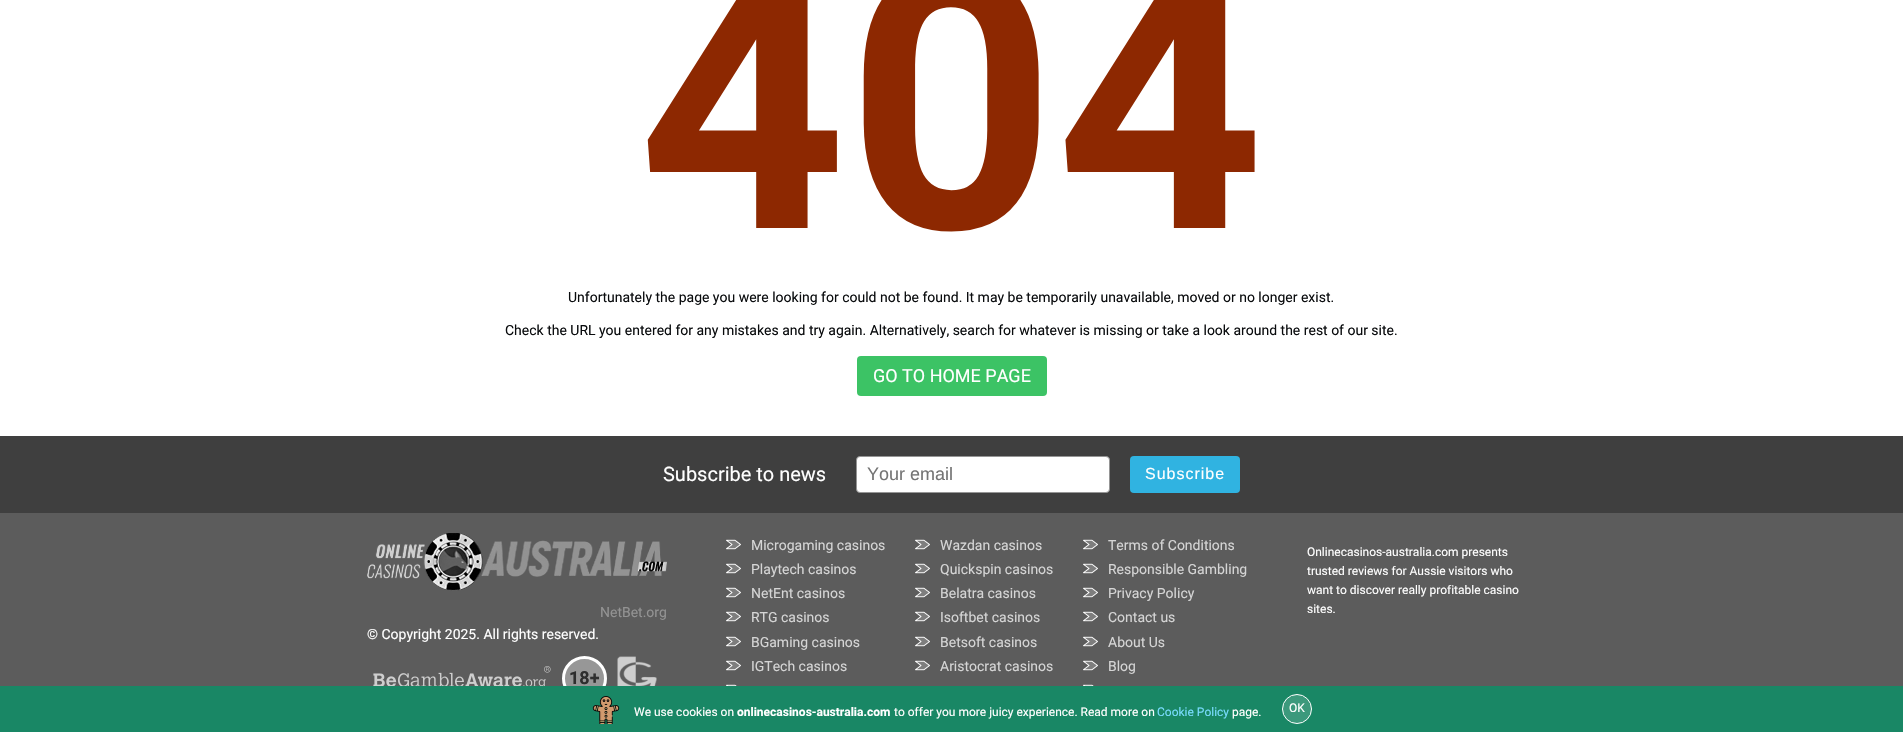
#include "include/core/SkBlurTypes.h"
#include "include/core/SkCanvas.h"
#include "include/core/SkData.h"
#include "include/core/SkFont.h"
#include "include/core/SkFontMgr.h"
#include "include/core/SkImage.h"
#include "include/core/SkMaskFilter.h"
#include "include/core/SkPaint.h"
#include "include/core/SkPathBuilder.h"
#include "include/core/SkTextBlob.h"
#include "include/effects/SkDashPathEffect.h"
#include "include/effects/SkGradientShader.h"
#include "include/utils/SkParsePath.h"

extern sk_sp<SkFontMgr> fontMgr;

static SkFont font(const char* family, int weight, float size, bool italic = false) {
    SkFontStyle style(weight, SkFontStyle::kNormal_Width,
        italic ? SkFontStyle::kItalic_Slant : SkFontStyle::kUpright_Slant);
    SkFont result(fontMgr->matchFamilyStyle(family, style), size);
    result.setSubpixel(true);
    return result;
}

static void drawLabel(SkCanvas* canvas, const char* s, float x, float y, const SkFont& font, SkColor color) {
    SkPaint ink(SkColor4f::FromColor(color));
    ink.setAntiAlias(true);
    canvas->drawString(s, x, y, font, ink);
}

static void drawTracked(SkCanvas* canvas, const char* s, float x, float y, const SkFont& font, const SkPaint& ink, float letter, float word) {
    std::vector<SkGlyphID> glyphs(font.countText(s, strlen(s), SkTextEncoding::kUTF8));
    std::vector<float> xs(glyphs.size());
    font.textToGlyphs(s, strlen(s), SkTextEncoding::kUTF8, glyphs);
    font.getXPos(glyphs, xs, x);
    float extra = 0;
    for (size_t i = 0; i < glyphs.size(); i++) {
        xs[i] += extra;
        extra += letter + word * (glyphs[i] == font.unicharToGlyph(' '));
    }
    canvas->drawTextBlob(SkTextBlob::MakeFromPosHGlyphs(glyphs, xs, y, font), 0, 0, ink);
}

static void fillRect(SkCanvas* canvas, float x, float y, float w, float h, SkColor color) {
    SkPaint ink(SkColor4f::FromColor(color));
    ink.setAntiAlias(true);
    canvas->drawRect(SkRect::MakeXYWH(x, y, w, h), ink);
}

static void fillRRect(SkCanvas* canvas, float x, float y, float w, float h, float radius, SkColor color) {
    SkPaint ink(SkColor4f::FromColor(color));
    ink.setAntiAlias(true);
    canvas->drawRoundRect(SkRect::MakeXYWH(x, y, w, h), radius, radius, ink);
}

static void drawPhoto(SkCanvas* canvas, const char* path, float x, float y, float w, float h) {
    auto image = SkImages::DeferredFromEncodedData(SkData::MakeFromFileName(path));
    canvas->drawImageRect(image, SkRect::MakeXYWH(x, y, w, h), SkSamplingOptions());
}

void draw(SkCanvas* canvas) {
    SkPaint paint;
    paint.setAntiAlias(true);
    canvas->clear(0xFFFFFFFF);
    SkFont font1 = font("Roboto", 700, 364);
    drawLabel(canvas, "404", 638, 228, font1, 0xFF8D2801);
    SkFont font2 = font("Roboto", 400, 14);
    drawLabel(canvas, "Unfortunately the page you were looking for could not be found. It may be temporarily unavailable, moved or no longer exist.", 568, 302, font2, 0xFF0A0C0E);
    drawLabel(canvas, "Check the URL you entered for any mistakes and try again. Alternatively, search for whatever is missing or take a look around the rest of our site.", 505, 335, font2, 0xFF0A0C0E);
    fillRRect(canvas, 857, 356, 190, 40, 4, 0xFF3CC365);
    SkFont font3 = font("Roboto", 400, 18);
    drawLabel(canvas, "GO TO HOME PAGE", 873, 382, font3, 0xFFFFFFFF);
    fillRect(canvas, 0, 436, 1903, 77, 0xFF3F3F3F);
    SkFont font4 = font("Roboto", 400, 20);
    drawLabel(canvas, "Subscribe to news", 663, 481, font4, 0xFFFFFFFF);
    paint.setColor(0xFFFFFFFF);
    canvas->drawRoundRect(SkRect::MakeXYWH(856.5f, 456.5f, 253, 36), 3.5f, 3.5f, paint);
    paint.setStroke(true);
    paint.setStrokeWidth(1);
    paint.setColor(0xFF959595);
    canvas->drawRoundRect(SkRect::MakeXYWH(856.5f, 456.5f, 253, 36), 3.5f, 3.5f, paint);
    SkFont font5 = font("Liberation Sans", 400, 18);
    drawLabel(canvas, "Your email", 867, 480, font5, 0xFF757575);
    fillRRect(canvas, 1130, 456, 110, 37, 4, 0xFF30B3E1);
    SkFont font6 = font("Liberation Sans", 400, 16);
    paint.setStroke(false);
    paint.setColor(0xFFFFFFFF);
    drawTracked(canvas, "Subscribe", 1145, 479, font6, paint, 1, 0);
    fillRect(canvas, 0, 513, 1903, 173, 0xFF5C5C5C);
    drawPhoto(canvas, "assets/img1.png", 726, 539, 15, 11);
    drawLabel(canvas, "Microgaming casinos", 751, 550, font2, 0xFFD5D5D5);
    drawPhoto(canvas, "assets/img1.png", 726, 563, 15, 11);
    drawLabel(canvas, "Playtech casinos", 751, 574, font2, 0xFFD5D5D5);
    drawPhoto(canvas, "assets/img1.png", 726, 587, 15, 11);
    drawLabel(canvas, "NetEnt casinos", 751, 598, font2, 0xFFD5D5D5);
    drawPhoto(canvas, "assets/img1.png", 726, 611, 15, 11);
    drawLabel(canvas, "RTG casinos", 751, 622, font2, 0xFFD5D5D5);
    drawPhoto(canvas, "assets/img1.png", 726, 636, 15, 11);
    drawLabel(canvas, "BGaming casinos", 751, 647, font2, 0xFFD5D5D5);
    drawPhoto(canvas, "assets/img1.png", 726, 660, 15, 11);
    drawLabel(canvas, "IGTech casinos", 751, 671, font2, 0xFFD5D5D5);
    drawPhoto(canvas, "assets/img2.png", 726, 684, 11, 2);
    drawPhoto(canvas, "assets/img1.png", 915, 539, 15, 11);
    drawLabel(canvas, "Wazdan casinos", 940, 550, font2, 0xFFD5D5D5);
    drawPhoto(canvas, "assets/img1.png", 915, 563, 15, 11);
    drawLabel(canvas, "Quickspin casinos", 940, 574, font2, 0xFFD5D5D5);
    drawPhoto(canvas, "assets/img1.png", 915, 587, 15, 11);
    drawLabel(canvas, "Belatra casinos", 940, 598, font2, 0xFFD5D5D5);
    drawPhoto(canvas, "assets/img1.png", 915, 611, 15, 11);
    drawLabel(canvas, "Isoftbet casinos", 940, 622, font2, 0xFFD5D5D5);
    drawPhoto(canvas, "assets/img1.png", 915, 636, 15, 11);
    drawLabel(canvas, "Betsoft casinos", 940, 647, font2, 0xFFD5D5D5);
    drawPhoto(canvas, "assets/img1.png", 915, 660, 15, 11);
    drawLabel(canvas, "Aristocrat casinos", 940, 671, font2, 0xFFD5D5D5);
    drawPhoto(canvas, "assets/img1.png", 1083, 539, 15, 11);
    drawLabel(canvas, "Terms of Conditions", 1108, 550, font2, 0xFFD5D5D5);
    drawPhoto(canvas, "assets/img1.png", 1083, 563, 15, 11);
    drawLabel(canvas, "Responsible Gambling", 1108, 574, font2, 0xFFD5D5D5);
    drawPhoto(canvas, "assets/img1.png", 1083, 587, 15, 11);
    drawLabel(canvas, "Privacy Policy", 1108, 598, font2, 0xFFD5D5D5);
    drawPhoto(canvas, "assets/img1.png", 1083, 611, 15, 11);
    drawLabel(canvas, "Contact us", 1108, 622, font2, 0xFFD5D5D5);
    drawPhoto(canvas, "assets/img1.png", 1083, 636, 15, 11);
    drawLabel(canvas, "About Us", 1108, 647, font2, 0xFFD5D5D5);
    drawPhoto(canvas, "assets/img1.png", 1083, 660, 15, 11);
    drawLabel(canvas, "Blog", 1108, 671, font2, 0xFFD5D5D5);
    drawPhoto(canvas, "assets/img2.png", 1083, 684, 11, 2);
    SkFont font7 = font("Roboto", 400, 12);
    drawLabel(canvas, "Onlinecasinos-australia.com presents", 1307, 556, font7, 0xFFFFFFFF);
    drawLabel(canvas, "trusted reviews for Aussie visitors who", 1307, 575, font7, 0xFFFFFFFF);
    drawLabel(canvas, "want to discover really profitable casino", 1307, 594, font7, 0xFFFFFFFF);
    drawLabel(canvas, "sites.", 1307, 613, font7, 0xFFFFFFFF);
    drawPhoto(canvas, "assets/img3.png", 367, 533, 300, 58);
    drawLabel(canvas, "NetBet.org", 600, 617, font2, 0xFF939393);
    drawLabel(canvas, "© Copyright 2025. All rights reserved.", 367, 639, font2, 0xFFFFFFFF);
    drawPhoto(canvas, "assets/img4.png", 373, 666, 178, 20);
    paint.setColor(0xFF979797);
    canvas->drawCircle(584.5f, 678.5f, 21, paint);
    paint.setStroke(true);
    paint.setStrokeWidth(3);
    paint.setColor(0xFFFFFFFF);
    canvas->drawCircle(584.5f, 678.5f, 21, paint);
    SkFont font8 = font("Roboto", 700, 18);
    drawLabel(canvas, "18+", 569, 684, font8, 0xFF2E2E2E);
    drawPhoto(canvas, "assets/img5.png", 617, 656, 40, 30);
    fillRect(canvas, 0, 686, 1903, 46, 0xFF198765);
    drawPhoto(canvas, "assets/img6.png", 592, 696, 28, 28);
    drawLabel(canvas, "We use cookies on", 634, 716, font7, 0xFFFFFFFF);
    SkFont font9 = font("Roboto", 700, 12);
    drawLabel(canvas, "onlinecasinos-australia.com", 737, 716, font9, 0xFFFFFFFF);
    drawLabel(canvas, "to offer you more juicy experience. Read more on", 894, 716, font7, 0xFFFFFFFF);
    drawLabel(canvas, "Cookie Policy", 1157, 716, font7, 0xFF79DCFF);
    drawLabel(canvas, "page.", 1232, 716, font7, 0xFFFFFFFF);
    paint.setStroke(false);
    paint.setColor(0xFF3C997C);
    canvas->drawCircle(1297, 709, 14.5f, paint);
    paint.setStroke(true);
    paint.setStrokeWidth(1);
    paint.setColor(0xFFFFFFFF);
    canvas->drawCircle(1297, 709, 14.5f, paint);
    drawLabel(canvas, "OK", 1289, 712, font7, 0xFFFFFFFF);
}
